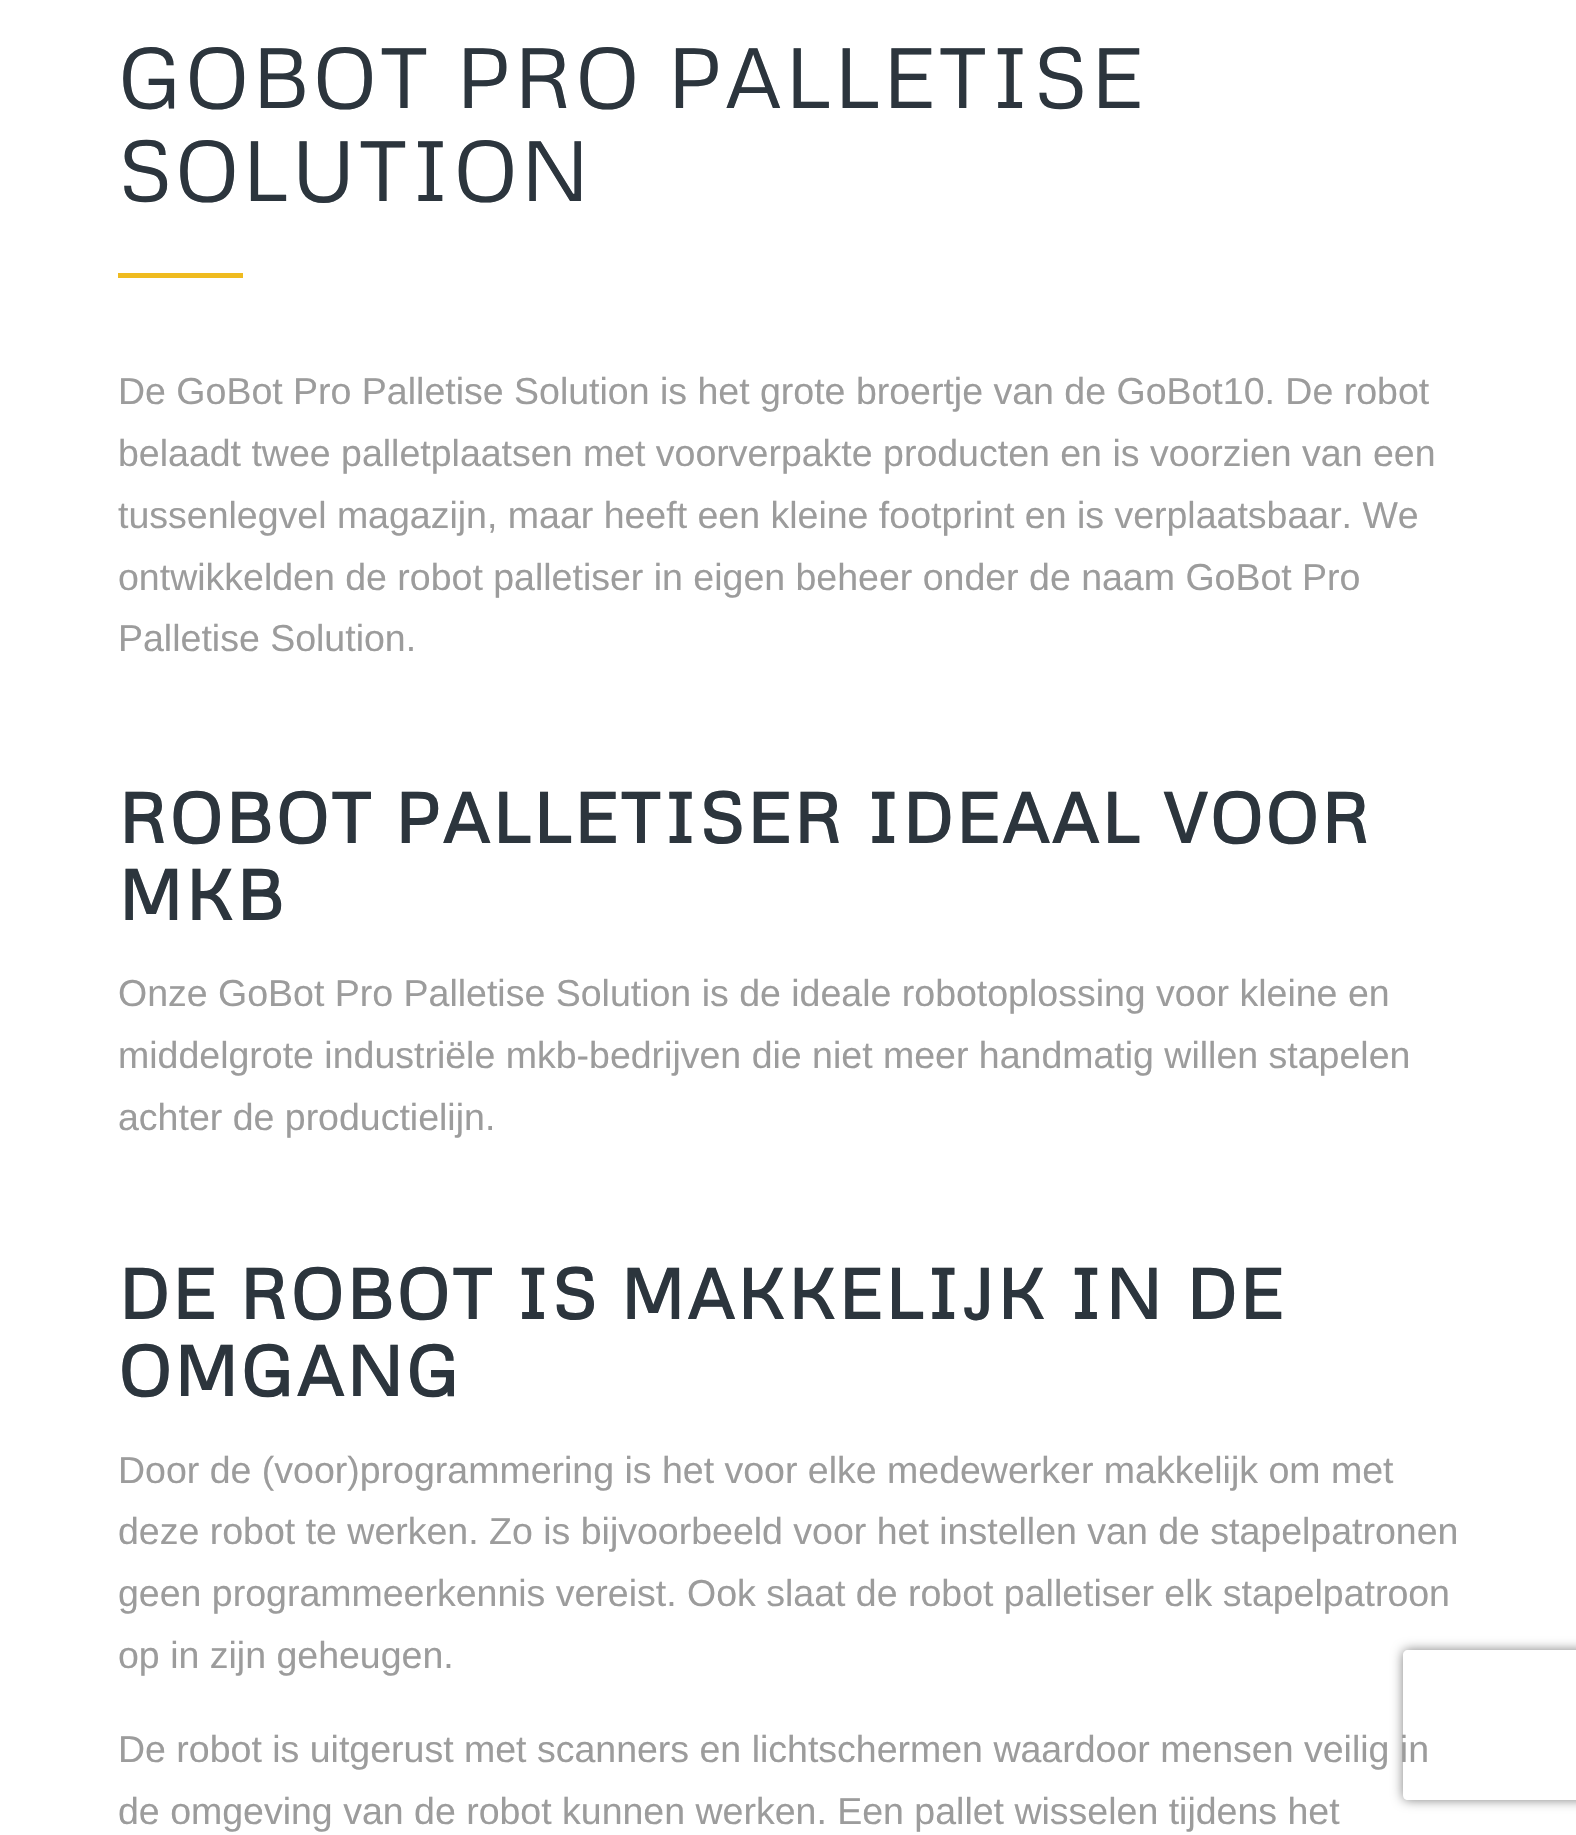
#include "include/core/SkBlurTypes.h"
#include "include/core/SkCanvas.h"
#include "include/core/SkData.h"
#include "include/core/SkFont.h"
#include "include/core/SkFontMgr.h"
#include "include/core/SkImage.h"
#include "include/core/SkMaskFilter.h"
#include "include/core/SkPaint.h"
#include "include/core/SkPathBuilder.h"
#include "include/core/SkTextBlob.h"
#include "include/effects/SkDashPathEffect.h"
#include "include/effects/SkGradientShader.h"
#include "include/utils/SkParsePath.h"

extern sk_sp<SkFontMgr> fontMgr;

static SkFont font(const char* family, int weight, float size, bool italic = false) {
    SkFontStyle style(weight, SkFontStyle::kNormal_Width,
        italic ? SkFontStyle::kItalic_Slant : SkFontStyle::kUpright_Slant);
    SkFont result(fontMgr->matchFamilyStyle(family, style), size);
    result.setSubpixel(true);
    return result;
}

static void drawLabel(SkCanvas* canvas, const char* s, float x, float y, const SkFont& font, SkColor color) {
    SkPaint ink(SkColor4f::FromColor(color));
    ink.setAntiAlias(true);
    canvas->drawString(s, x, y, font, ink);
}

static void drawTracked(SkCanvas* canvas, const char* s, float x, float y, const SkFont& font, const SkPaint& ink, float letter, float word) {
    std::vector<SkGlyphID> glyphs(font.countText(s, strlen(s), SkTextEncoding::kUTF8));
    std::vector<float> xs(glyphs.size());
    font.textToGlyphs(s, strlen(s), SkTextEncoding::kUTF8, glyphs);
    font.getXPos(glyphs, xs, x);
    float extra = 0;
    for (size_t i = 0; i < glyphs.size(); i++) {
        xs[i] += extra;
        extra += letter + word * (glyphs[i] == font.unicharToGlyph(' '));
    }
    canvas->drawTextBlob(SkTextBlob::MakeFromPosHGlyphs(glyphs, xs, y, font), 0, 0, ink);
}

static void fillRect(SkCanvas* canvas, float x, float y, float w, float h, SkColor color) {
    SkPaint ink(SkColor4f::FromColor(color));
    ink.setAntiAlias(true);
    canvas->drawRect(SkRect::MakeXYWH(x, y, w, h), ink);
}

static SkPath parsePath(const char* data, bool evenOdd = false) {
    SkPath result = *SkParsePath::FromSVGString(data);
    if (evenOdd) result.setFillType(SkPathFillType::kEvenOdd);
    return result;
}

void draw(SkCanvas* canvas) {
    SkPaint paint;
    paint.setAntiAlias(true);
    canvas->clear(0xFFFFFFFF);
    SkFont font1 = font("Metrophobic", 400, 85);
    paint.setColor(0xFF2C353D);
    drawTracked(canvas, "GOBOT PRO PALLETISE", 118, 108, font1, paint, 2.5f, 0);
    drawTracked(canvas, "SOLUTION", 118, 201, font1, paint, 2.5f, 0);
    fillRect(canvas, 118, 273, 125, 5, 0xFFEFBB20);
    SkFont font2 = font("Liberation Sans", 400, 37.5f);
    drawLabel(canvas, "De GoBot Pro Palletise Solution is het grote broertje van de GoBot10. De robot", 118, 404, font2, 0xFF9C9C9C);
    drawLabel(canvas, "belaadt twee palletplaatsen met voorverpakte producten en is voorzien van een", 118, 466, font2, 0xFF9C9C9C);
    drawLabel(canvas, "tussenlegvel magazijn, maar heeft een kleine footprint en is verplaatsbaar. We", 118, 528, font2, 0xFF9C9C9C);
    drawLabel(canvas, "ontwikkelden de robot palletiser in eigen beheer onder de naam GoBot Pro", 118, 590, font2, 0xFF9C9C9C);
    drawLabel(canvas, "Palletise Solution.", 118, 651, font2, 0xFF9C9C9C);
    SkFont font3 = font("Metrophobic", 700, 70);
    drawTracked(canvas, "ROBOT PALLETISER IDEAAL VOOR", 118, 843, font3, paint, 2.5f, 0);
    drawTracked(canvas, "MKB", 118, 920, font3, paint, 2.5f, 0);
    drawLabel(canvas, "Onze GoBot Pro Palletise Solution is de ideale robotoplossing voor kleine en", 118, 1006, font2, 0xFF9C9C9C);
    drawLabel(canvas, "middelgrote industriële mkb-bedrijven die niet meer handmatig willen stapelen", 118, 1068, font2, 0xFF9C9C9C);
    drawLabel(canvas, "achter de productielijn.", 118, 1130, font2, 0xFF9C9C9C);
    drawTracked(canvas, "DE ROBOT IS MAKKELIJK IN DE", 118, 1319, font3, paint, 2.5f, 0);
    drawTracked(canvas, "OMGANG", 118, 1396, font3, paint, 2.5f, 0);
    drawLabel(canvas, "Door de (voor)programmering is het voor elke medewerker makkelijk om met", 118, 1483, font2, 0xFF9C9C9C);
    drawLabel(canvas, "deze robot te werken. Zo is bijvoorbeeld voor het instellen van de stapelpatronen", 118, 1544, font2, 0xFF9C9C9C);
    drawLabel(canvas, "geen programmeerkennis vereist. Ook slaat de robot palletiser elk stapelpatroon", 118, 1606, font2, 0xFF9C9C9C);
    drawLabel(canvas, "op in zijn geheugen.", 118, 1668, font2, 0xFF9C9C9C);
    canvas->save();
    canvas->clipPath(parsePath("M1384 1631H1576V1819H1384ZM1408 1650H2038C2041 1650 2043 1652 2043 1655V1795C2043 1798 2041 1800 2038 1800H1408C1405 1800 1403 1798 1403 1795V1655C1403 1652 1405 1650 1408 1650Z", true), true);
    paint.setColor(0xFF808080);
    paint.setMaskFilter(SkMaskFilter::MakeBlur(kNormal_SkBlurStyle, 6));
    canvas->drawRoundRect(SkRect::MakeXYWH(1403, 1650, 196, 150), 5, 5, paint);
    paint.setMaskFilter(nullptr);
    canvas->restore();
    drawLabel(canvas, "De robot is uitgerust met scanners en lichtschermen waardoor mensen veilig in", 118, 1762, font2, 0xFF9C9C9C);
    drawLabel(canvas, "de omgeving van de robot kunnen werken. Een pallet wisselen tijdens het", 118, 1824, font2, 0xFF9C9C9C);
}
